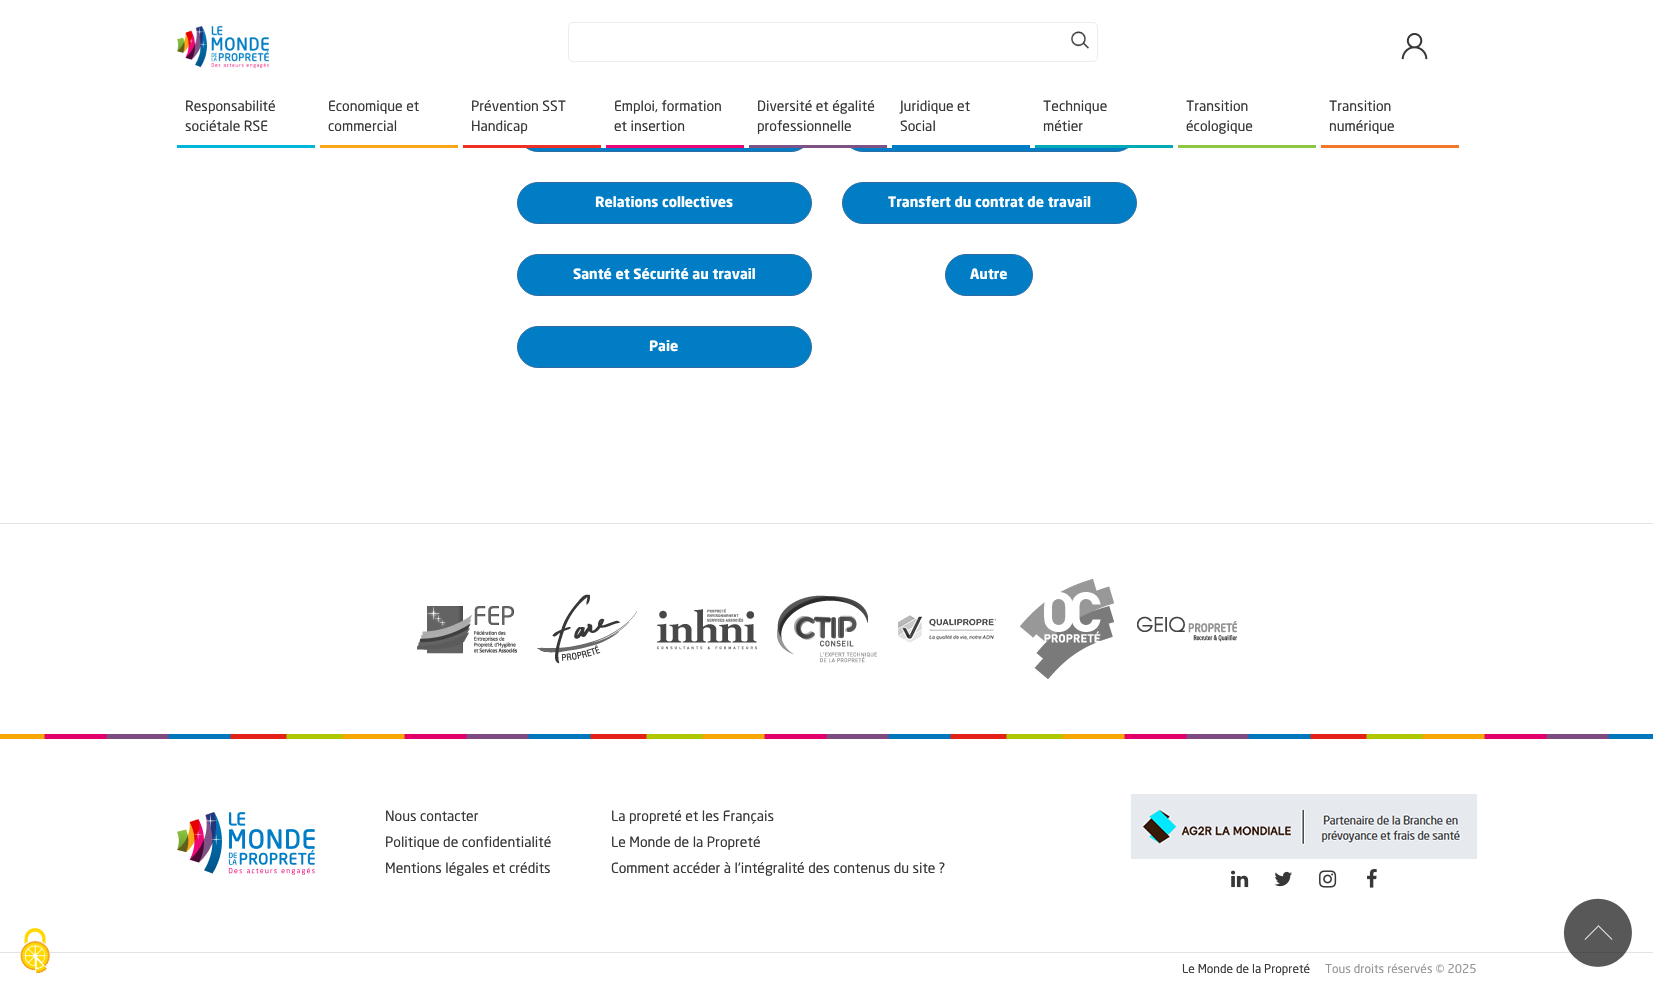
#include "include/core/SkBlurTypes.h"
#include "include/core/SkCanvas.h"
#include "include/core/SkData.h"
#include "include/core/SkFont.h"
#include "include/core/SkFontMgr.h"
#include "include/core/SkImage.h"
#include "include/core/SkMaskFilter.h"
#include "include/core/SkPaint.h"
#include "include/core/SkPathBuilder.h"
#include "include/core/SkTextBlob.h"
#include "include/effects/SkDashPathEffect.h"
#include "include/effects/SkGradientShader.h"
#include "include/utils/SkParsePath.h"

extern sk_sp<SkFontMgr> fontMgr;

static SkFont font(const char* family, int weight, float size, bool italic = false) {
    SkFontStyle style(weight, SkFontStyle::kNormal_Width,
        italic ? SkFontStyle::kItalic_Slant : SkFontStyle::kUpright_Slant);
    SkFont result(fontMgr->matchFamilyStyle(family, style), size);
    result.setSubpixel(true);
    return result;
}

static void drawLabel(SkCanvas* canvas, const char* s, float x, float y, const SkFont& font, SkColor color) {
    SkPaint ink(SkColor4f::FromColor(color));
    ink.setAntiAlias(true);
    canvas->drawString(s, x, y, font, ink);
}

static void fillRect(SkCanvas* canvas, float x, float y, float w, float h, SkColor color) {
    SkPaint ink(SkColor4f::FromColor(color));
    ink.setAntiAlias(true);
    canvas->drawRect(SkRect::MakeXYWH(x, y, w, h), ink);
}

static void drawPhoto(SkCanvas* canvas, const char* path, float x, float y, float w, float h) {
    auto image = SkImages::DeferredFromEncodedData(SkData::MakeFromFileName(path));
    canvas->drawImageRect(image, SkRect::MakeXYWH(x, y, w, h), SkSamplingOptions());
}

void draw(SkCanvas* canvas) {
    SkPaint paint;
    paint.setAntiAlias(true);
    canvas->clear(0xFFFFFFFF);
    fillRect(canvas, 0, 952, 1653, 1, 0xFFE4E2E2);
    drawPhoto(canvas, "assets/img1.png", 20, 928, 30, 46);
    paint.setColor(0xFF007DC5);
    canvas->drawRoundRect(SkRect::MakeXYWH(517.5f, 110.5f, 294, 41), 20.5f, 20.5f, paint);
    paint.setStroke(true);
    paint.setStrokeWidth(1);
    paint.setColor(0xFF2E6DA4);
    canvas->drawRoundRect(SkRect::MakeXYWH(517.5f, 110.5f, 294, 41), 20.5f, 20.5f, paint);
    paint.setStroke(false);
    paint.setColor(0xFF007DC5);
    canvas->drawRoundRect(SkRect::MakeXYWH(842.5f, 110.5f, 294, 41), 20.5f, 20.5f, paint);
    paint.setStroke(true);
    paint.setColor(0xFF2E6DA4);
    canvas->drawRoundRect(SkRect::MakeXYWH(842.5f, 110.5f, 294, 41), 20.5f, 20.5f, paint);
    fillRect(canvas, 517, 110, 620, 38, 0xFFFFFFFF);
    drawPhoto(canvas, "assets/img2.png", 177, 26, 92, 42);
    paint.setColor(0xFFECECEC);
    canvas->drawRoundRect(SkRect::MakeXYWH(568.5f, 22.5f, 529, 39), 4.5f, 4.5f, paint);
    drawPhoto(canvas, "assets/img3.png", 1071, 31, 18, 18);
    drawPhoto(canvas, "assets/img4.png", 1401, 33, 27, 27);
    fillRect(canvas, 177, 145, 138, 3, 0xFF00B4DA);
    SkFont font1 = font("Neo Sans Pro", 400, 14);
    drawLabel(canvas, "Responsabilité", 185, 111, font1, 0xFF373737);
    drawLabel(canvas, "sociétale RSE", 185, 131, font1, 0xFF373737);
    fillRect(canvas, 320, 145, 138, 3, 0xFFFAA61A);
    drawLabel(canvas, "Economique et", 328, 111, font1, 0xFF373737);
    drawLabel(canvas, "commercial", 328, 131, font1, 0xFF373737);
    fillRect(canvas, 463, 145, 138, 3, 0xFFEE3124);
    drawLabel(canvas, "Prévention SST", 471, 111, font1, 0xFF373737);
    drawLabel(canvas, "Handicap", 471, 131, font1, 0xFF373737);
    fillRect(canvas, 606, 145, 138, 3, 0xFFED0677);
    drawLabel(canvas, "Emploi, formation", 614, 111, font1, 0xFF373737);
    drawLabel(canvas, "et insertion", 614, 131, font1, 0xFF373737);
    fillRect(canvas, 749, 145, 138, 3, 0xFF7F5286);
    drawLabel(canvas, "Diversité et égalité", 757, 111, font1, 0xFF373737);
    drawLabel(canvas, "professionnelle", 757, 131, font1, 0xFF373737);
    fillRect(canvas, 892, 145, 138, 3, 0xFF007DC5);
    drawLabel(canvas, "Juridique et", 900, 111, font1, 0xFF373737);
    drawLabel(canvas, "Social", 900, 131, font1, 0xFF373737);
    fillRect(canvas, 1035, 145, 138, 3, 0xFF00A9B3);
    drawLabel(canvas, "Technique", 1043, 111, font1, 0xFF373737);
    drawLabel(canvas, "métier", 1043, 131, font1, 0xFF373737);
    fillRect(canvas, 1178, 145, 138, 3, 0xFF8DC63F);
    drawLabel(canvas, "Transition", 1186, 111, font1, 0xFF373737);
    drawLabel(canvas, "écologique", 1186, 131, font1, 0xFF373737);
    fillRect(canvas, 1321, 145, 138, 3, 0xFFF47727);
    drawLabel(canvas, "Transition", 1329, 111, font1, 0xFF373737);
    drawLabel(canvas, "numérique", 1329, 131, font1, 0xFF373737);
    paint.setStroke(false);
    paint.setColor(0xFF007DC5);
    canvas->drawRoundRect(SkRect::MakeXYWH(517.5f, 182.5f, 294, 41), 20.5f, 20.5f, paint);
    paint.setStroke(true);
    paint.setColor(0xFF2E6DA4);
    canvas->drawRoundRect(SkRect::MakeXYWH(517.5f, 182.5f, 294, 41), 20.5f, 20.5f, paint);
    SkFont font2 = font("Neo Sans Pro", 700, 14);
    drawLabel(canvas, "Relations collectives", 595, 207, font2, 0xFFFFFFFF);
    paint.setStroke(false);
    paint.setColor(0xFF007DC5);
    canvas->drawRoundRect(SkRect::MakeXYWH(517.5f, 254.5f, 294, 41), 20.5f, 20.5f, paint);
    paint.setStroke(true);
    paint.setColor(0xFF2E6DA4);
    canvas->drawRoundRect(SkRect::MakeXYWH(517.5f, 254.5f, 294, 41), 20.5f, 20.5f, paint);
    drawLabel(canvas, "Santé et Sécurité au travail", 573, 279, font2, 0xFFFFFFFF);
    paint.setStroke(false);
    paint.setColor(0xFF007DC5);
    canvas->drawRoundRect(SkRect::MakeXYWH(517.5f, 326.5f, 294, 41), 20.5f, 20.5f, paint);
    paint.setStroke(true);
    paint.setColor(0xFF2E6DA4);
    canvas->drawRoundRect(SkRect::MakeXYWH(517.5f, 326.5f, 294, 41), 20.5f, 20.5f, paint);
    drawLabel(canvas, "Paie", 649, 351, font2, 0xFFFFFFFF);
    paint.setStroke(false);
    paint.setColor(0xFF007DC5);
    canvas->drawRoundRect(SkRect::MakeXYWH(842.5f, 182.5f, 294, 41), 20.5f, 20.5f, paint);
    paint.setStroke(true);
    paint.setColor(0xFF2E6DA4);
    canvas->drawRoundRect(SkRect::MakeXYWH(842.5f, 182.5f, 294, 41), 20.5f, 20.5f, paint);
    drawLabel(canvas, "Transfert du contrat de travail", 888, 207, font2, 0xFFFFFFFF);
    paint.setStroke(false);
    paint.setColor(0xFF007DC5);
    canvas->drawRoundRect(SkRect::MakeXYWH(945.5f, 254.5f, 87, 41), 20.5f, 20.5f, paint);
    paint.setStroke(true);
    paint.setColor(0xFF2E6DA4);
    canvas->drawRoundRect(SkRect::MakeXYWH(945.5f, 254.5f, 87, 41), 20.5f, 20.5f, paint);
    drawLabel(canvas, "Autre", 970, 279, font2, 0xFFFFFFFF);
    fillRect(canvas, 0, 523, 1653, 1, 0xFFE4E2E2);
    drawPhoto(canvas, "assets/img5.png", 417, 606, 100, 48);
    drawPhoto(canvas, "assets/img6.png", 537, 594, 100, 70);
    drawPhoto(canvas, "assets/img7.png", 657, 608, 100, 42);
    drawPhoto(canvas, "assets/img8.png", 777, 595, 100, 68);
    drawPhoto(canvas, "assets/img9.png", 898, 615, 98, 28);
    drawPhoto(canvas, "assets/img10.png", 1020, 579, 94, 100);
    drawPhoto(canvas, "assets/img11.png", 1137, 616, 100, 26);
    drawPhoto(canvas, "assets/img12.png", 0, 734, 1653, 5);
    drawPhoto(canvas, "assets/img13.png", 177, 812, 138, 63);
    drawLabel(canvas, "Nous contacter", 385, 821, font1, 0xFF373737);
    drawLabel(canvas, "Politique de confidentialité", 385, 847, font1, 0xFF373737);
    drawLabel(canvas, "Mentions légales et crédits", 385, 873, font1, 0xFF373737);
    drawLabel(canvas, "La propreté et les Français", 611, 821, font1, 0xFF373737);
    drawLabel(canvas, "Le Monde de la Propreté", 611, 847, font1, 0xFF373737);
    drawLabel(canvas, "Comment accéder à l'intégralité des contenus du site ?", 611, 873, font1, 0xFF373737);
    drawPhoto(canvas, "assets/img14.png", 1131, 794, 346, 65);
    drawPhoto(canvas, "assets/img15.png", 1231, 870, 18, 18);
    drawPhoto(canvas, "assets/img16.png", 1274, 871, 18, 16);
    drawPhoto(canvas, "assets/img17.png", 1319, 870, 18, 18);
    drawPhoto(canvas, "assets/img18.png", 1367, 869, 10, 19);
    SkFont font3 = font("Neo Sans Pro", 400, 12);
    drawLabel(canvas, "Le Monde de la Propreté", 1182, 973, font3, 0xFF373737);
    drawLabel(canvas, "Tous droits réservés © 2025", 1325, 973, font3, 0xFF959595);
    drawPhoto(canvas, "assets/img19.png", 1563, 898, 69, 69);
}
